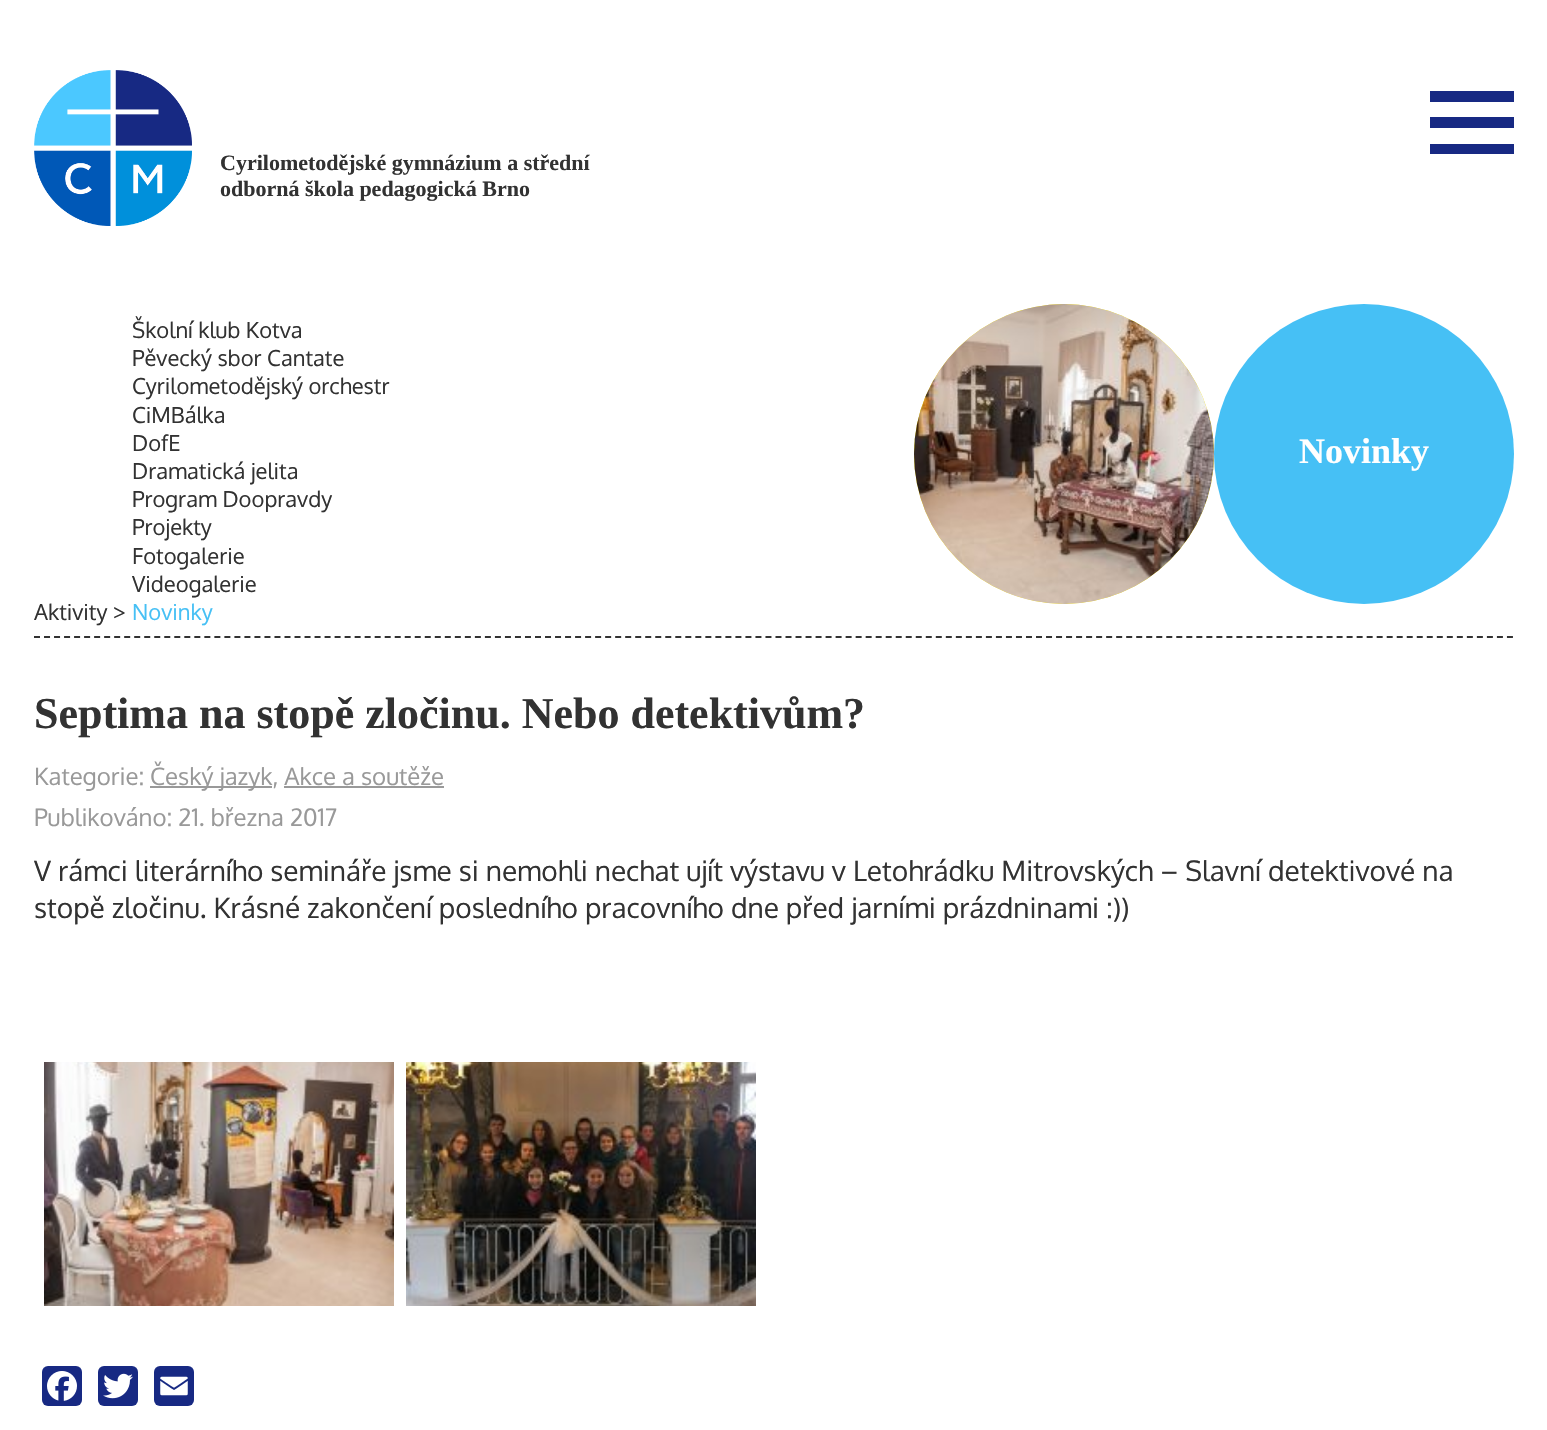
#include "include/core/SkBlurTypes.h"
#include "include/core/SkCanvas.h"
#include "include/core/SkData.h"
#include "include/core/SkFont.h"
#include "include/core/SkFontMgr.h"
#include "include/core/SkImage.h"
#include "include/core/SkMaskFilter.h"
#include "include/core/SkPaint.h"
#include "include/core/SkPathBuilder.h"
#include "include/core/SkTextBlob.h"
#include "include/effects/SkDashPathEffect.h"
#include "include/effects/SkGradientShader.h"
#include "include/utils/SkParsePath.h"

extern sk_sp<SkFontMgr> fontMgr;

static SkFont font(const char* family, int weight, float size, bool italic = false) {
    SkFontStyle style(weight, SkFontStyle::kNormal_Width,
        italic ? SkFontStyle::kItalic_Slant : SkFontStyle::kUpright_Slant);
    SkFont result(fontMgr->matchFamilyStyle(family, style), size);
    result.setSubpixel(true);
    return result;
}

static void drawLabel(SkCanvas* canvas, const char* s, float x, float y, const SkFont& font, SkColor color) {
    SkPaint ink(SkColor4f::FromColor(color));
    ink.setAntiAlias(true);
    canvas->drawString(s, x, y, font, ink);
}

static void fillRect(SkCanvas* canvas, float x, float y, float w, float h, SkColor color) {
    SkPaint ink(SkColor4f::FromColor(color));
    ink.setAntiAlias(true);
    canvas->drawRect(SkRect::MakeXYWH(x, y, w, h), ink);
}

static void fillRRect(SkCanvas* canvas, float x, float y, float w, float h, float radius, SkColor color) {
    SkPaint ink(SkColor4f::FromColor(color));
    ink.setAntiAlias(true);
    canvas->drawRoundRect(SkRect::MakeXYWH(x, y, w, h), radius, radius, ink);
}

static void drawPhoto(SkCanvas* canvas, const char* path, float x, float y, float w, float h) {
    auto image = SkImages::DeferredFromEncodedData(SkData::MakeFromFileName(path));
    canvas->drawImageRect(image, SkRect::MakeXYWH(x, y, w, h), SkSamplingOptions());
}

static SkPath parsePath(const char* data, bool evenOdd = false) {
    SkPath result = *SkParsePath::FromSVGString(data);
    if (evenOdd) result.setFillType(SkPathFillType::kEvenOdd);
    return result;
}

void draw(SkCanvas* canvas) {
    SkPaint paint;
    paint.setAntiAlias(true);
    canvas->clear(0xFFFFFFFF);
    paint.setColor(0xFF172983);
    canvas->drawPath(parsePath("M1430 96V102H1514V91H1430ZM1430 123V128H1514V117H1430ZM1430 149V154H1514V144H1430Z"), paint);
    drawPhoto(canvas, "assets/img1.png", 34, 70, 158, 156);
    SkFont font1 = font("Liberation Serif", 700, 22);
    drawLabel(canvas, "Cyrilometodějské gymnázium a střední", 220, 170, font1, 0xFF323232);
    drawLabel(canvas, "odborná škola pedagogická Brno", 220, 196, font1, 0xFF323232);
    paint.setStroke(true);
    paint.setStrokeWidth(2);
    paint.setColor(0xFF323232);
    paint.setPathEffect(SkDashPathEffect::Make({{6, 4.02f}}, 0));
    canvas->drawPath(parsePath("M34 637H1514"), paint);
    paint.setPathEffect(nullptr);
    SkFont font2 = font("Oxygen", 400, 22);
    drawLabel(canvas, "Aktivity", 34, 620, font2, 0xFF323232);
    drawLabel(canvas, ">", 113, 620, font2, 0xFF323232);
    drawLabel(canvas, "Školní klub Kotva", 132, 338, font2, 0xFF323232);
    drawLabel(canvas, "Pěvecký sbor Cantate", 132, 366, font2, 0xFF323232);
    drawLabel(canvas, "Cyrilometodějský orchestr", 132, 394, font2, 0xFF323232);
    drawLabel(canvas, "CiMBálka", 132, 423, font2, 0xFF323232);
    drawLabel(canvas, "DofE", 132, 451, font2, 0xFF323232);
    drawLabel(canvas, "Dramatická jelita", 132, 479, font2, 0xFF323232);
    drawLabel(canvas, "Program Doopravdy", 132, 507, font2, 0xFF323232);
    drawLabel(canvas, "Projekty", 132, 535, font2, 0xFF323232);
    drawLabel(canvas, "Fotogalerie", 132, 564, font2, 0xFF323232);
    drawLabel(canvas, "Videogalerie", 132, 592, font2, 0xFF323232);
    drawLabel(canvas, "Novinky", 132, 620, font2, 0xFF46C0F5);
    paint.setStroke(false);
    paint.setColor(0xFFFFED00);
    canvas->drawCircle(1064, 454, 150, paint);
    drawPhoto(canvas, "assets/img2.png", 914, 304, 300, 300);
    paint.setColor(0xFF46C0F5);
    canvas->drawCircle(1364, 454, 150, paint);
    SkFont font3 = font("Liberation Serif", 700, 36);
    drawLabel(canvas, "Novinky", 1299, 463, font3, 0xFFFFFFFF);
    SkFont font4 = font("Liberation Serif", 700, 44);
    drawLabel(canvas, "Septima na stopě zločinu. Nebo detektivům?", 34, 728, font4, 0xFF323232);
    SkFont font5 = font("Oxygen", 400, 24);
    drawLabel(canvas, "Kategorie:", 34, 785, font5, 0xFF999999);
    fillRect(canvas, 150, 786, 122, 2, 0xFF999999);
    drawLabel(canvas, "Český jazyk, Akce a soutěže", 150, 785, font5, 0xFF999999);
    fillRect(canvas, 284, 786, 160, 2, 0xFF999999);
    drawLabel(canvas, "Publikováno: 21. března 2017", 34, 826, font5, 0xFF999999);
    SkFont font6 = font("Oxygen", 400, 28);
    drawLabel(canvas, "V rámci literárního semináře jsme si nemohli nechat ujít výstavu v Letohrádku Mitrovských – Slavní detektivové na", 34, 881, font6, 0xFF323232);
    drawLabel(canvas, "stopě zločinu. Krásné zakončení posledního pracovního dne před jarními prázdninami :))", 34, 918, font6, 0xFF323232);
    drawPhoto(canvas, "assets/img3.png", 44, 1062, 350, 244);
    drawPhoto(canvas, "assets/img4.png", 406, 1062, 350, 244);
    fillRRect(canvas, 42, 1366, 40, 40, 6, 0xFF172983);
    drawPhoto(canvas, "assets/img5.png", 47, 1371, 30, 30);
    fillRRect(canvas, 98, 1366, 40, 40, 6, 0xFF172983);
    drawPhoto(canvas, "assets/img6.png", 103, 1373, 30, 26);
    fillRRect(canvas, 154, 1366, 40, 40, 6, 0xFF172983);
    drawPhoto(canvas, "assets/img7.png", 160, 1376, 28, 20);
}
